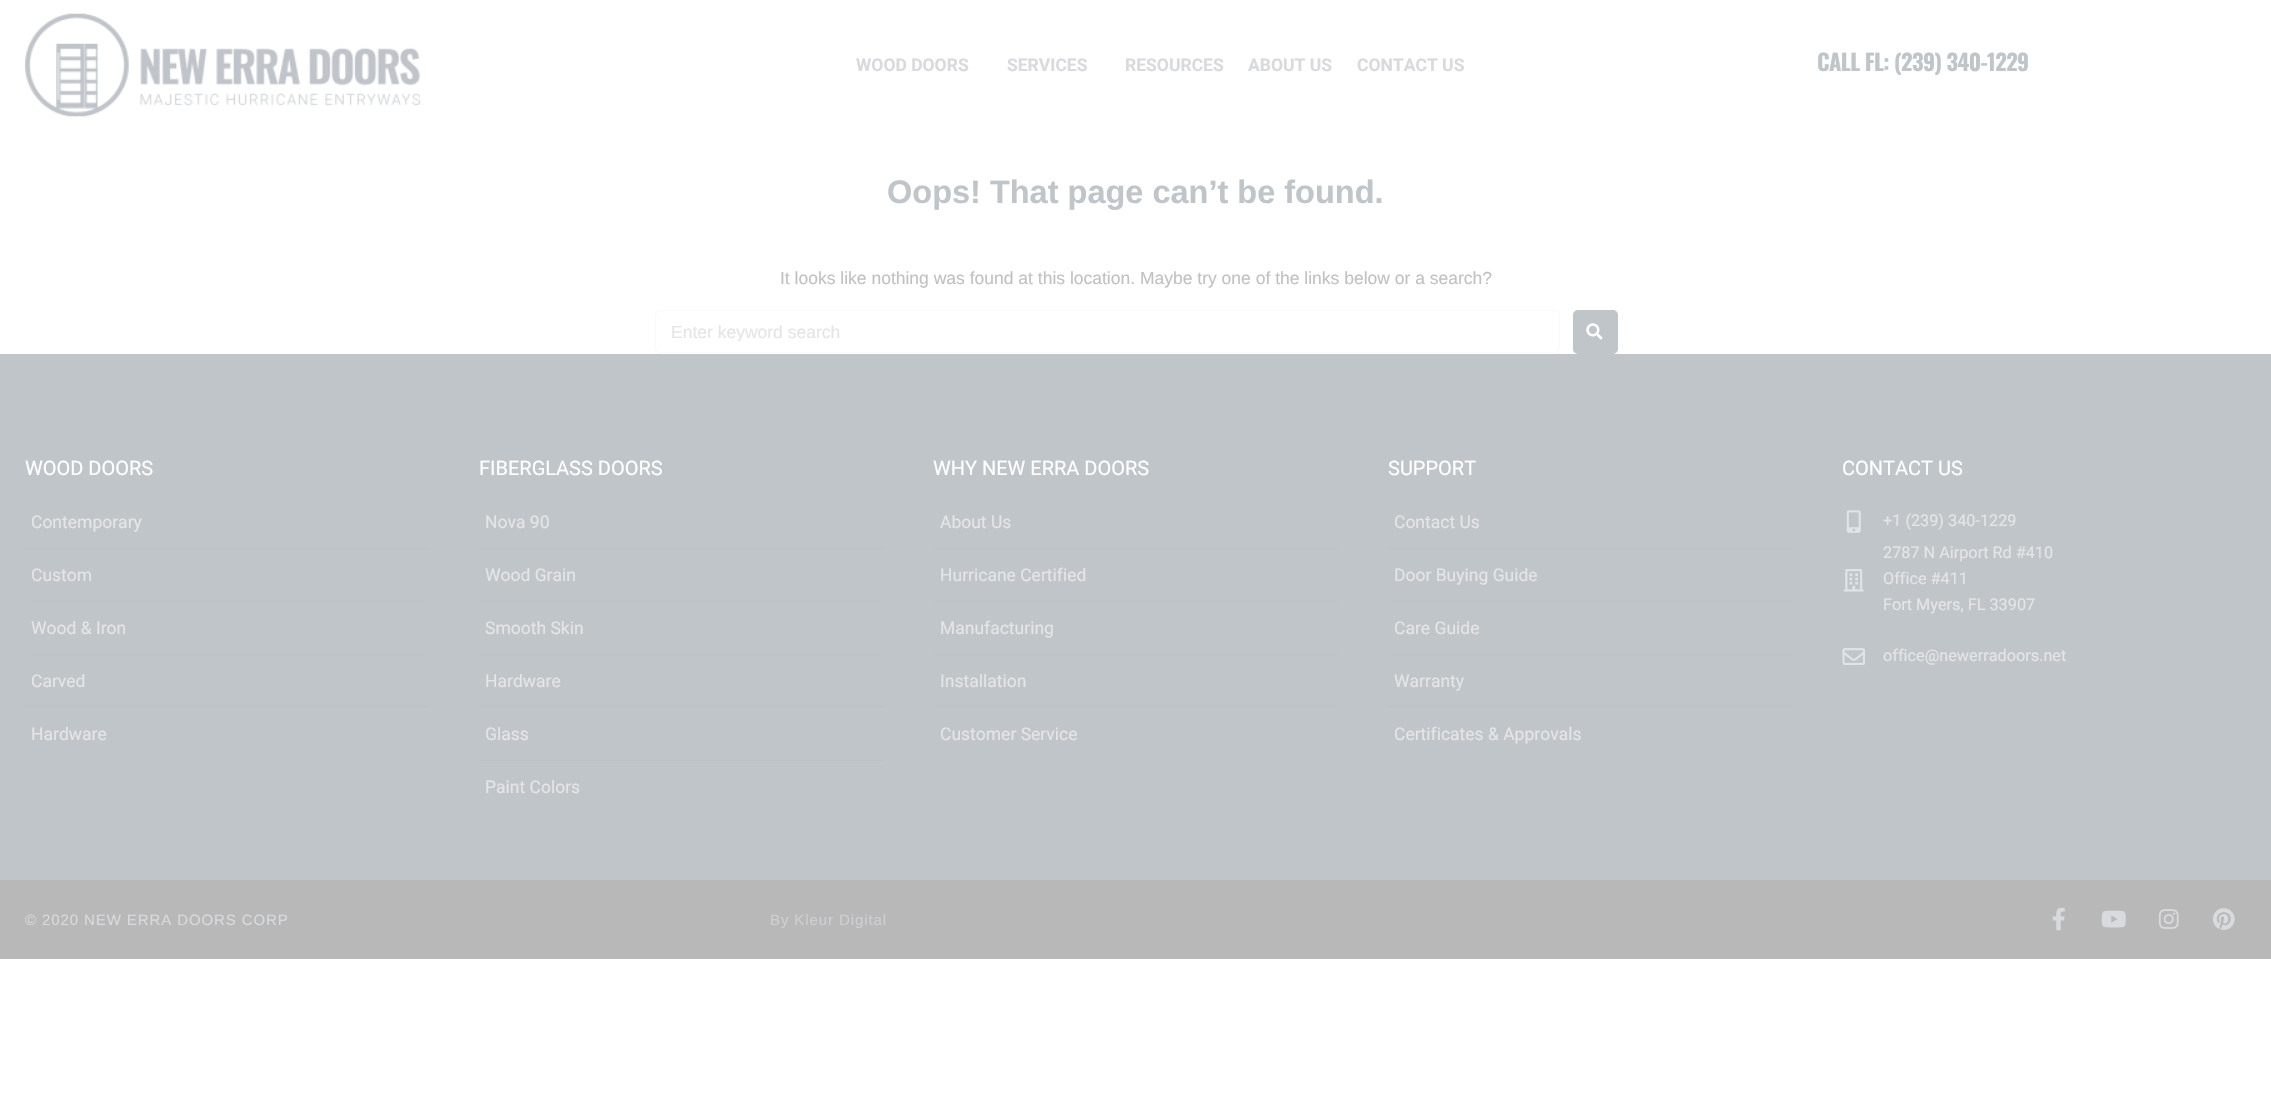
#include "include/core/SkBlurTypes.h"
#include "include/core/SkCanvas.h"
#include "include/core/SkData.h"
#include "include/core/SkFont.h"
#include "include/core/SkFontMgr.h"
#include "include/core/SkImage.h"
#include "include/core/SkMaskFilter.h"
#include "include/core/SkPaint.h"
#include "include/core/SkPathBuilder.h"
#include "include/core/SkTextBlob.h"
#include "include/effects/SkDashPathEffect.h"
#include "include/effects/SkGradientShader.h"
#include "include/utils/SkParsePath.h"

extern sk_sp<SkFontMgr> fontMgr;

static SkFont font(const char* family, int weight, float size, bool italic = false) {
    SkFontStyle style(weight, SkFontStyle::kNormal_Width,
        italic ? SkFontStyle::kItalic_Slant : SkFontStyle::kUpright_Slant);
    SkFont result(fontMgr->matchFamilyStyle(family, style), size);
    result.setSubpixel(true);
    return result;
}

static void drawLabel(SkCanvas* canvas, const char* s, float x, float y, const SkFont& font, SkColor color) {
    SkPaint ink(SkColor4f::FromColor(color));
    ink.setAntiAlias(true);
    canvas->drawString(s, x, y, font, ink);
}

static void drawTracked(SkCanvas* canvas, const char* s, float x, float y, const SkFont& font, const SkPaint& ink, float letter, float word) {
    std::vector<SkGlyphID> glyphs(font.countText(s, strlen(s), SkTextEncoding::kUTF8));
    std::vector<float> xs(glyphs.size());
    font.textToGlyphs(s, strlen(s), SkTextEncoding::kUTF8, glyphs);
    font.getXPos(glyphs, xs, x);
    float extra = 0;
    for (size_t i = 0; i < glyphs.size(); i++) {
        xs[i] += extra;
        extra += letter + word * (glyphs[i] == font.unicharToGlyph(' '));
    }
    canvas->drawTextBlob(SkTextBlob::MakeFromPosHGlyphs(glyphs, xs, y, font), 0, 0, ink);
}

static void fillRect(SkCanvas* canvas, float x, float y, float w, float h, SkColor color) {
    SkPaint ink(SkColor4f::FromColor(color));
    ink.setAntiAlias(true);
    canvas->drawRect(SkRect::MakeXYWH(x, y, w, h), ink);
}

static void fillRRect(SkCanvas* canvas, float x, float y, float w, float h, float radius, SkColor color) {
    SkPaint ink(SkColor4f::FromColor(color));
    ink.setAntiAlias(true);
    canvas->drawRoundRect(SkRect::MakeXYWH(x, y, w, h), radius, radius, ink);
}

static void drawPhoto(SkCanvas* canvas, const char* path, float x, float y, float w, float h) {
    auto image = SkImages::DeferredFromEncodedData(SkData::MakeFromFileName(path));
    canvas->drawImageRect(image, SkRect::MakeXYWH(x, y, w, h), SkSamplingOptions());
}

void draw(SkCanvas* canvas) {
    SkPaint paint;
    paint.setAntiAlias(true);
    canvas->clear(0xFFFFFFFF);
    drawPhoto(canvas, "assets/img1.png", 25, 13, 396, 104);
    SkFont font1 = font("Roboto", 700, 17.5f);
    drawLabel(canvas, "WOOD DOORS", 856, 71, font1, 0xFFD8DADD);
    drawLabel(canvas, "SERVICES", 1007, 71, font1, 0xFFD8DADD);
    drawLabel(canvas, "RESOURCES", 1125, 71, font1, 0xFFD8DADD);
    drawLabel(canvas, "ABOUT US", 1248, 71, font1, 0xFFD8DADD);
    drawLabel(canvas, "CONTACT US", 1357, 71, font1, 0xFFD8DADD);
    SkFont font2 = font("Oswald", 700, 22.5f);
    paint.setColor(0xFFC0C5CA);
    drawTracked(canvas, "CALL FL: (239) 340-1229", 1817, 71, font2, paint, -0.6f, 0);
    SkFont font3 = font("Liberation Sans", 700, 32.5f);
    drawLabel(canvas, "Oops! That page can’t be found.", 887, 203, font3, 0xFFC0C5CA);
    SkFont font4 = font("Liberation Sans", 400, 17.5f);
    drawLabel(canvas, "It looks like nothing was found at this location. Maybe try one of the links below or a search?", 780, 284, font4, 0xFFC1C1C1);
    paint.setStroke(true);
    paint.setStrokeWidth(1);
    paint.setColor(0xFFF9FAFA);
    canvas->drawRoundRect(SkRect::MakeXYWH(655.5f, 310.5f, 904, 42), 4.5f, 4.5f, paint);
    canvas->save();
    canvas->clipRect(SkRect::MakeXYWH(671, 321, 868, 20));
    drawLabel(canvas, "Enter keyword search", 671, 338, font4, 0xFFE5E5E6);
    canvas->restore();
    fillRRect(canvas, 1573, 310, 45, 44, 5, 0xFFC0C5CA);
    drawPhoto(canvas, "assets/img2.png", 1586, 323, 17, 17);
    fillRect(canvas, 0, 354, 2271, 526, 0xFFC0C5CA);
    SkFont font5 = font("Roboto", 400, 20);
    drawLabel(canvas, "WOOD DOORS", 25, 475, font5, 0xFFFFFFFF);
    SkFont font6 = font("Roboto", 400, 17.5f);
    drawLabel(canvas, "Contemporary", 31, 528, font6, 0xFFE5E5E6);
    fillRect(canvas, 25, 548, 404, 1, 0xFFBEC2C5);
    drawLabel(canvas, "Custom", 31, 581, font6, 0xFFE5E5E6);
    fillRect(canvas, 25, 601, 404, 1, 0xFFBEC2C5);
    drawLabel(canvas, "Wood & Iron", 31, 634, font6, 0xFFE5E5E6);
    fillRect(canvas, 25, 654, 404, 1, 0xFFBEC2C5);
    drawLabel(canvas, "Carved", 31, 687, font6, 0xFFE5E5E6);
    fillRect(canvas, 25, 706, 404, 1, 0xFFBEC2C5);
    drawLabel(canvas, "Hardware", 31, 740, font6, 0xFFE5E5E6);
    drawLabel(canvas, "FIBERGLASS DOORS", 479, 475, font5, 0xFFFFFFFF);
    drawLabel(canvas, "Nova 90", 485, 528, font6, 0xFFE5E5E6);
    fillRect(canvas, 479, 548, 405, 1, 0xFFBEC2C5);
    drawLabel(canvas, "Wood Grain", 485, 581, font6, 0xFFE5E5E6);
    fillRect(canvas, 479, 601, 405, 1, 0xFFBEC2C5);
    drawLabel(canvas, "Smooth Skin", 485, 634, font6, 0xFFE5E5E6);
    fillRect(canvas, 479, 654, 405, 1, 0xFFBEC2C5);
    drawLabel(canvas, "Hardware", 485, 687, font6, 0xFFE5E5E6);
    fillRect(canvas, 479, 706, 405, 1, 0xFFBEC2C5);
    drawLabel(canvas, "Glass", 485, 740, font6, 0xFFE5E5E6);
    fillRect(canvas, 479, 760, 405, 1, 0xFFBEC2C5);
    drawLabel(canvas, "Paint Colors", 485, 793, font6, 0xFFE5E5E6);
    drawLabel(canvas, "WHY NEW ERRA DOORS", 933, 475, font5, 0xFFFFFFFF);
    drawLabel(canvas, "About Us", 940, 528, font6, 0xFFE5E5E6);
    fillRect(canvas, 934, 548, 404, 1, 0xFFBEC2C5);
    drawLabel(canvas, "Hurricane Certified", 940, 581, font6, 0xFFE5E5E6);
    fillRect(canvas, 934, 601, 404, 1, 0xFFBEC2C5);
    drawLabel(canvas, "Manufacturing", 940, 634, font6, 0xFFE5E5E6);
    fillRect(canvas, 934, 654, 404, 1, 0xFFBEC2C5);
    drawLabel(canvas, "Installation", 940, 687, font6, 0xFFE5E5E6);
    fillRect(canvas, 934, 706, 404, 1, 0xFFBEC2C5);
    drawLabel(canvas, "Customer Service", 940, 740, font6, 0xFFE5E5E6);
    drawLabel(canvas, "SUPPORT", 1388, 475, font5, 0xFFFFFFFF);
    drawLabel(canvas, "Contact Us", 1394, 528, font6, 0xFFE5E5E6);
    fillRect(canvas, 1388, 548, 405, 1, 0xFFBEC2C5);
    drawLabel(canvas, "Door Buying Guide", 1394, 581, font6, 0xFFE5E5E6);
    fillRect(canvas, 1388, 601, 405, 1, 0xFFBEC2C5);
    drawLabel(canvas, "Care Guide", 1394, 634, font6, 0xFFE5E5E6);
    fillRect(canvas, 1388, 654, 405, 1, 0xFFBEC2C5);
    drawLabel(canvas, "Warranty", 1394, 687, font6, 0xFFE5E5E6);
    fillRect(canvas, 1388, 706, 405, 1, 0xFFBEC2C5);
    drawLabel(canvas, "Certificates & Approvals", 1394, 740, font6, 0xFFE5E5E6);
    drawLabel(canvas, "CONTACT US", 1842, 475, font5, 0xFFFFFFFF);
    drawPhoto(canvas, "assets/img3.png", 1846, 510, 15, 23);
    SkFont font7 = font("Roboto", 400, 16.25f);
    drawLabel(canvas, "+1 (239) 340-1229", 1883, 526, font7, 0xFFE5E5E6);
    drawPhoto(canvas, "assets/img4.png", 1843, 569, 21, 23);
    drawLabel(canvas, "2787 N Airport Rd #410", 1883, 558, font7, 0xFFE5E5E6);
    drawLabel(canvas, "Office #411", 1883, 584, font7, 0xFFE5E5E6);
    drawLabel(canvas, "Fort Myers, FL 33907", 1883, 610, font7, 0xFFE5E5E6);
    drawPhoto(canvas, "assets/img5.png", 1842, 648, 23, 17);
    drawLabel(canvas, "office@newerradoors.net", 1883, 661, font7, 0xFFE5E5E6);
    fillRect(canvas, 0, 880, 2271, 79, 0xFFB8B8B8);
    SkFont font8 = font("Liberation Sans", 400, 15);
    paint.setStroke(false);
    paint.setColor(0xFFD8DADD);
    drawTracked(canvas, "© 2020 NEW ERRA DOORS CORP", 25, 925, font8, paint, 0.9f, 0);
    paint.setColor(0xFFCECFD2);
    drawTracked(canvas, "By Kleur Digital", 770, 925, font8, paint, 0.9f, 0);
    drawPhoto(canvas, "assets/img6.png", 2052, 907, 13, 24);
    drawPhoto(canvas, "assets/img7.png", 2101, 910, 25, 18);
    drawPhoto(canvas, "assets/img8.png", 2158, 909, 21, 20);
    drawPhoto(canvas, "assets/img9.png", 2212, 908, 23, 22);
}
